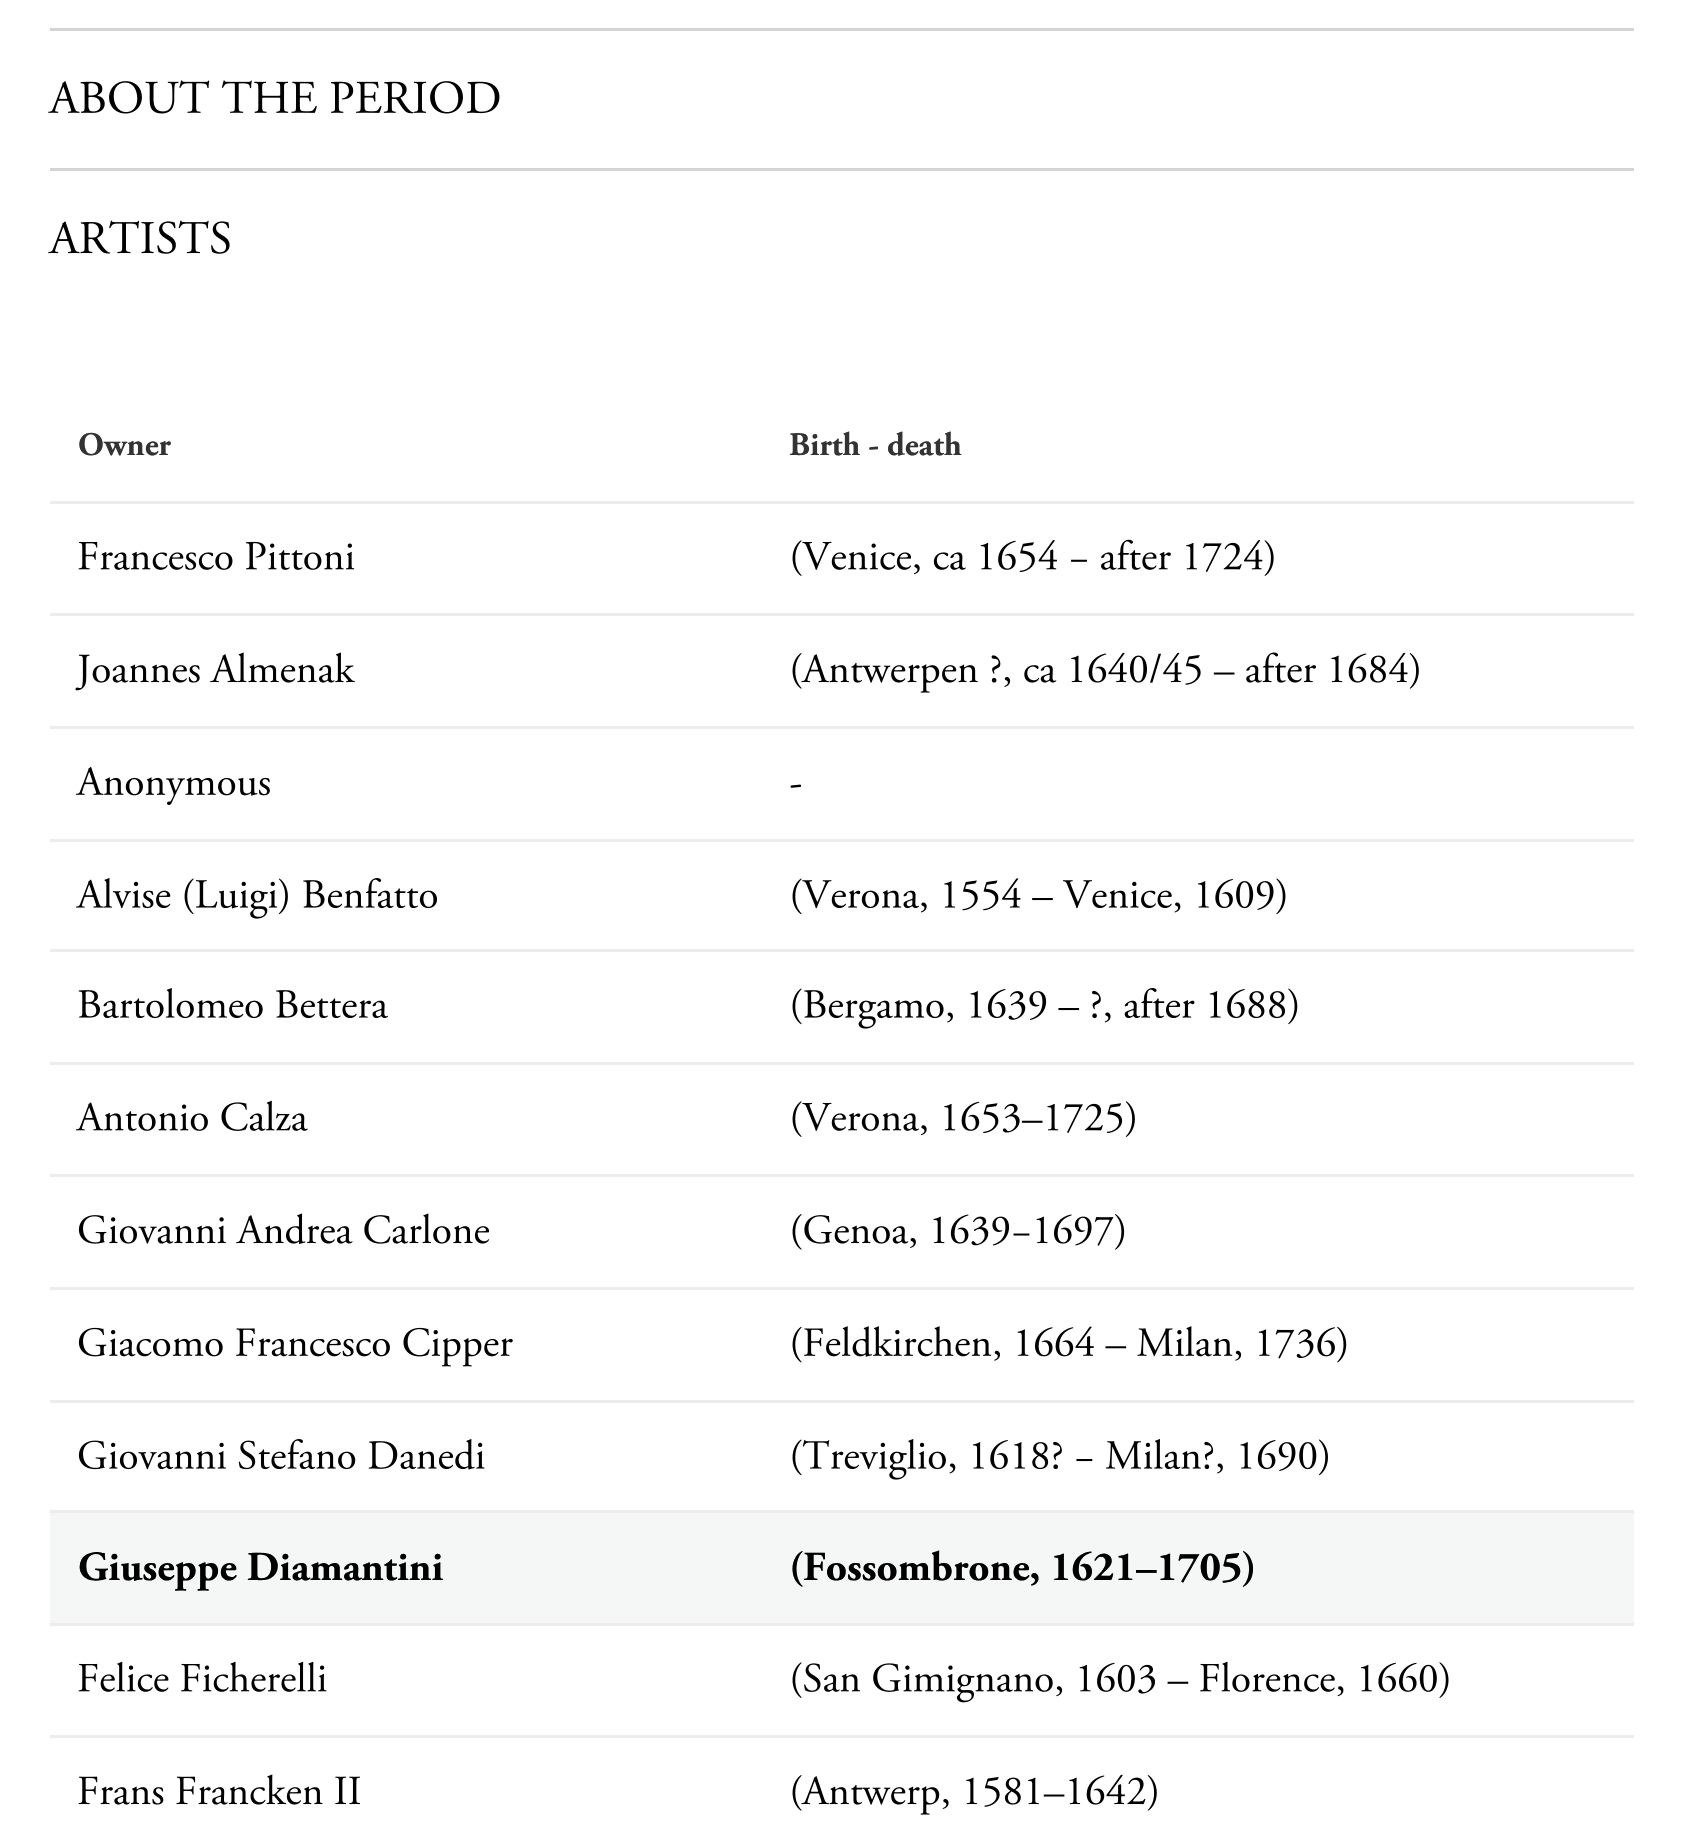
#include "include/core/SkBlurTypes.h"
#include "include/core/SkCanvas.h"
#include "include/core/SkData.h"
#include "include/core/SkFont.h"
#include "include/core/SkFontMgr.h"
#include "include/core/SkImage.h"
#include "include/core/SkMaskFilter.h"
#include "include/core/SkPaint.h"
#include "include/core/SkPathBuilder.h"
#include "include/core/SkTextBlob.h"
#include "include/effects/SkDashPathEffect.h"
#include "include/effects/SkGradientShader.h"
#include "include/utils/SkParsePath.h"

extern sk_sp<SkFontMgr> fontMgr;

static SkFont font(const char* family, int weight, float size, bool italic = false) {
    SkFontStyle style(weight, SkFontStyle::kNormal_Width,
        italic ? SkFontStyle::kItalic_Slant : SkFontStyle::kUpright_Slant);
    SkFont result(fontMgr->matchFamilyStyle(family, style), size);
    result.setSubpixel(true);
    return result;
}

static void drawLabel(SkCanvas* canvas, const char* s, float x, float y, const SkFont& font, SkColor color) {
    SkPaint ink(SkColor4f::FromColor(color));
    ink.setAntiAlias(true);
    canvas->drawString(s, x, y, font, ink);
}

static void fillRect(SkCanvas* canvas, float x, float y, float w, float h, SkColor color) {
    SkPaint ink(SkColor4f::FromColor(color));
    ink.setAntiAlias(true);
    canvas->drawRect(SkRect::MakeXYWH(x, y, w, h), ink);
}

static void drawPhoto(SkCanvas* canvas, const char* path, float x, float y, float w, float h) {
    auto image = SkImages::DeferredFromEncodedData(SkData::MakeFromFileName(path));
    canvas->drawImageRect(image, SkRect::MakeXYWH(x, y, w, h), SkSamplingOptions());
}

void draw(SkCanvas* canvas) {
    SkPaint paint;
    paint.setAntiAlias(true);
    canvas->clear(0xFFFFFFFF);
    fillRect(canvas, 50, 28, 1584, 3, 0xFFD4D4D4);
    drawPhoto(canvas, "assets/img1.png", 48, 80, 452, 34);
    fillRect(canvas, 50, 168, 1584, 3, 0xFFD4D4D4);
    drawPhoto(canvas, "assets/img2.png", 48, 220, 182, 34);
    fillRect(canvas, 50, 501, 1584, 3, 0xFFECECE9);
    SkFont font1 = font("Adobe Garamond", 700, 33);
    drawLabel(canvas, "Owner", 78, 455, font1, 0xFF333333);
    drawLabel(canvas, "Birth - death", 789, 455, font1, 0xFF333333);
    drawPhoto(canvas, "assets/img3.png", 792, 539, 482, 37);
    fillRect(canvas, 50, 613, 1584, 3, 0xFFECECE9);
    drawPhoto(canvas, "assets/img4.png", 78, 541, 277, 29);
    fillRect(canvas, 50, 726, 1584, 3, 0xFFECECE9);
    drawPhoto(canvas, "assets/img5.png", 75, 652, 280, 39);
    drawPhoto(canvas, "assets/img6.png", 792, 652, 627, 41);
    fillRect(canvas, 50, 839, 1584, 3, 0xFFECECE9);
    drawPhoto(canvas, "assets/img7.png", 75, 766, 195, 39);
    drawPhoto(canvas, "assets/img8.png", 790, 784, 12, 4);
    fillRect(canvas, 50, 949, 1584, 3, 0xFFECECE9);
    drawPhoto(canvas, "assets/img9.png", 76, 878, 361, 41);
    drawPhoto(canvas, "assets/img10.png", 792, 878, 494, 37);
    fillRect(canvas, 50, 1062, 1584, 3, 0xFFECECE9);
    drawPhoto(canvas, "assets/img11.png", 78, 988, 310, 31);
    drawPhoto(canvas, "assets/img12.png", 792, 988, 506, 41);
    fillRect(canvas, 50, 1174, 1584, 3, 0xFFECECE9);
    drawPhoto(canvas, "assets/img13.png", 75, 1100, 233, 31);
    drawPhoto(canvas, "assets/img14.png", 792, 1101, 343, 36);
    fillRect(canvas, 50, 1287, 1584, 3, 0xFFECECE9);
    drawPhoto(canvas, "assets/img15.png", 78, 1213, 412, 31);
    drawPhoto(canvas, "assets/img16.png", 792, 1214, 333, 36);
    drawPhoto(canvas, "assets/img17.png", 792, 1326, 555, 37);
    fillRect(canvas, 50, 1400, 1584, 3, 0xFFECECE9);
    drawPhoto(canvas, "assets/img18.png", 78, 1327, 435, 40);
    fillRect(canvas, 50, 1510, 1584, 3, 0xFFECECE9);
    drawPhoto(canvas, "assets/img19.png", 78, 1439, 407, 31);
    drawPhoto(canvas, "assets/img20.png", 792, 1439, 536, 41);
    fillRect(canvas, 50, 1513, 1584, 110, 0xFFF5F7F6);
    fillRect(canvas, 50, 1623, 1584, 3, 0xFFECECE9);
    SkFont font2 = font("Adobe Garamond", 700, 41.25f);
    drawLabel(canvas, "Giuseppe Diamantini", 78, 1580, font2, 0xFF000000);
    drawLabel(canvas, "(Fossombrone, 1621–1705)", 789, 1580, font2, 0xFF000000);
    fillRect(canvas, 50, 1735, 1584, 3, 0xFFECECE9);
    drawPhoto(canvas, "assets/img21.png", 78, 1661, 249, 31);
    drawPhoto(canvas, "assets/img22.png", 792, 1661, 657, 42);
    drawPhoto(canvas, "assets/img23.png", 78, 1774, 283, 31);
    drawPhoto(canvas, "assets/img24.png", 792, 1774, 365, 41);
}
